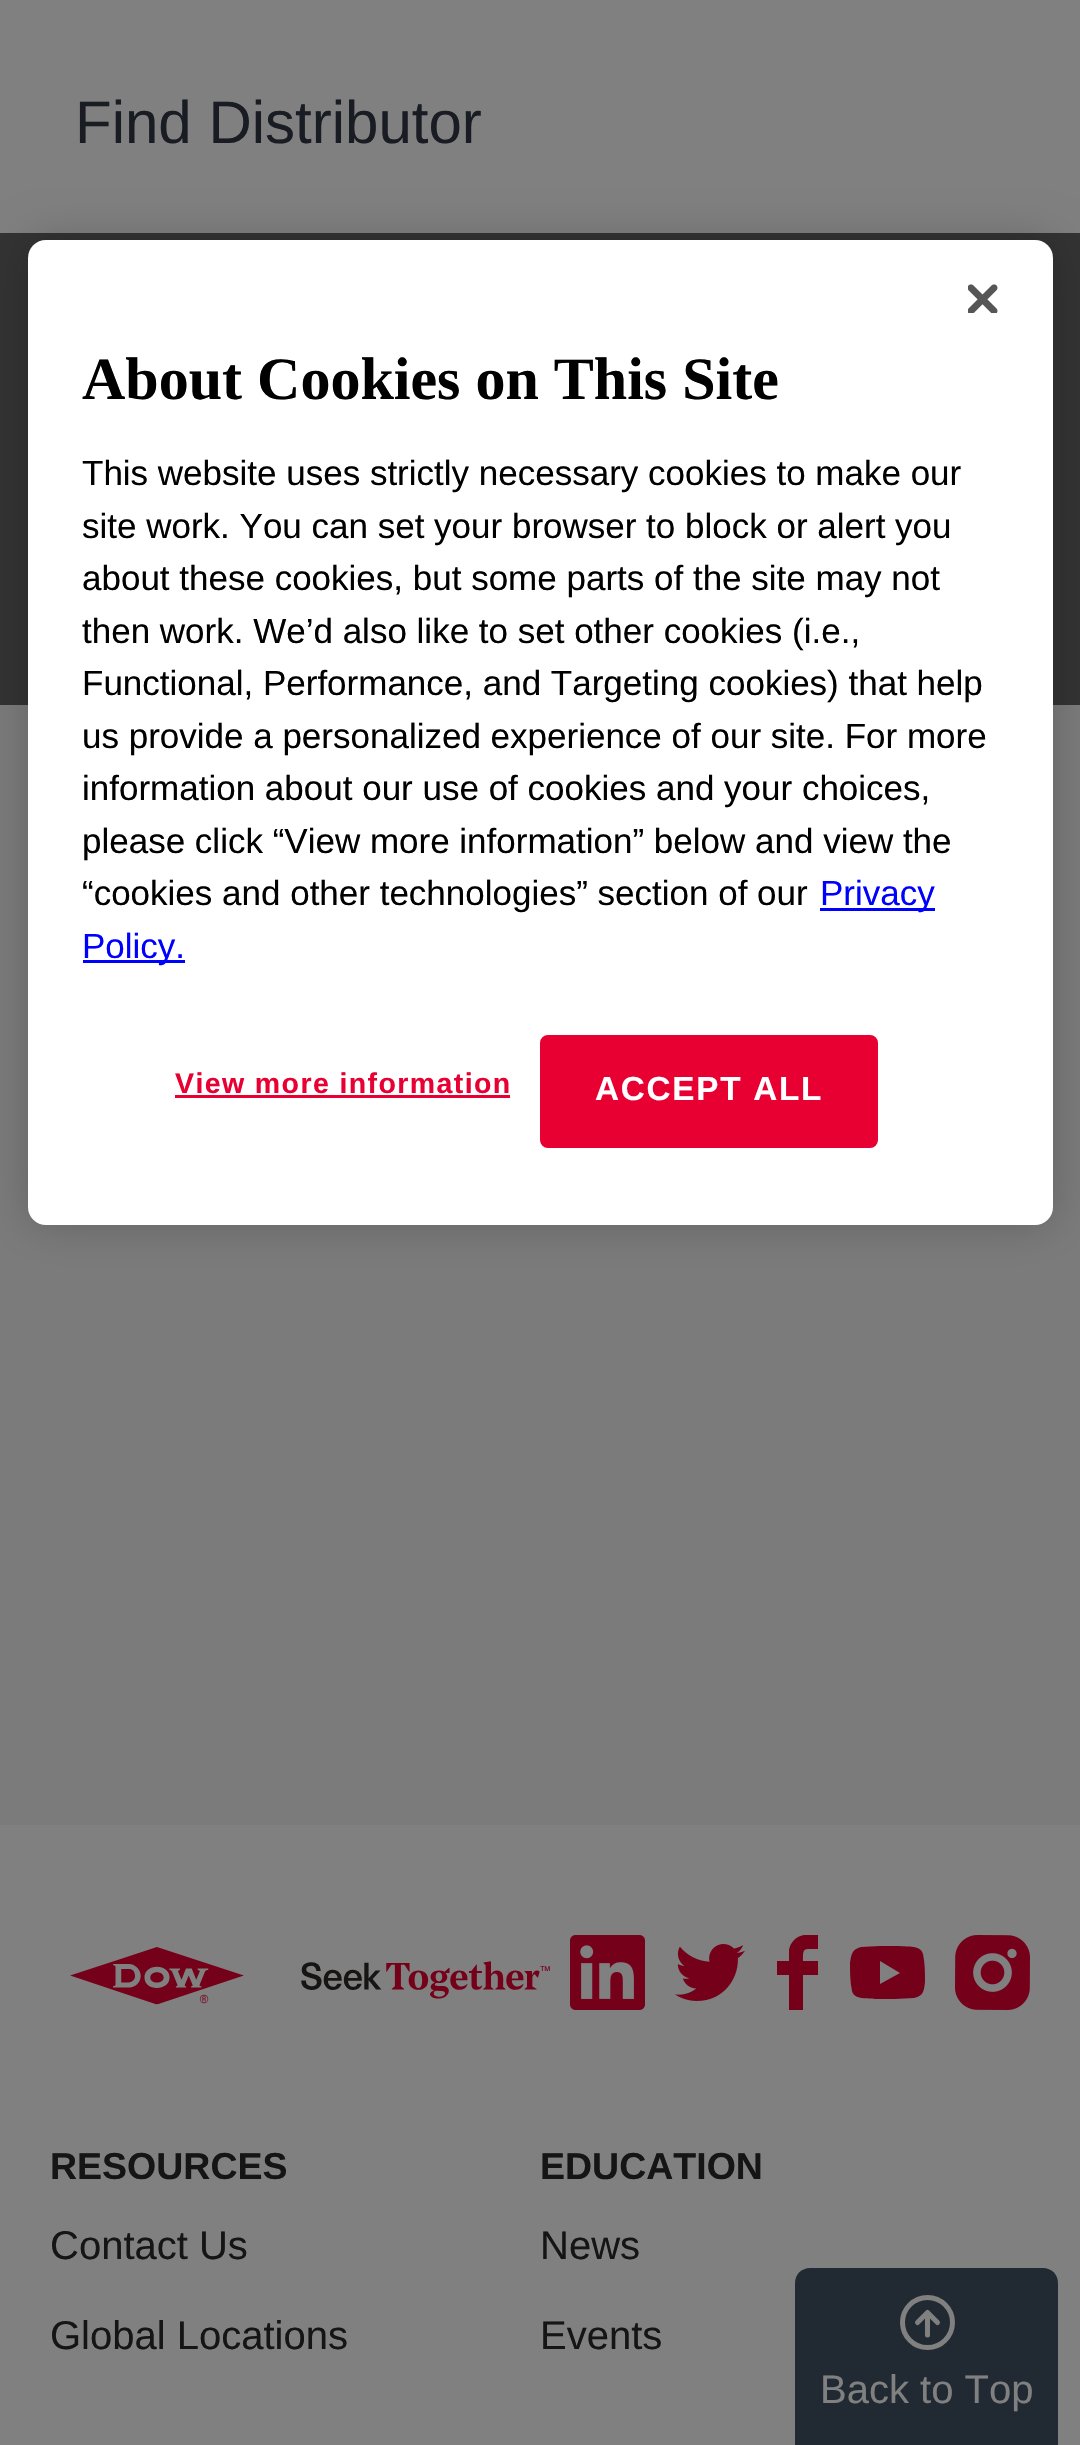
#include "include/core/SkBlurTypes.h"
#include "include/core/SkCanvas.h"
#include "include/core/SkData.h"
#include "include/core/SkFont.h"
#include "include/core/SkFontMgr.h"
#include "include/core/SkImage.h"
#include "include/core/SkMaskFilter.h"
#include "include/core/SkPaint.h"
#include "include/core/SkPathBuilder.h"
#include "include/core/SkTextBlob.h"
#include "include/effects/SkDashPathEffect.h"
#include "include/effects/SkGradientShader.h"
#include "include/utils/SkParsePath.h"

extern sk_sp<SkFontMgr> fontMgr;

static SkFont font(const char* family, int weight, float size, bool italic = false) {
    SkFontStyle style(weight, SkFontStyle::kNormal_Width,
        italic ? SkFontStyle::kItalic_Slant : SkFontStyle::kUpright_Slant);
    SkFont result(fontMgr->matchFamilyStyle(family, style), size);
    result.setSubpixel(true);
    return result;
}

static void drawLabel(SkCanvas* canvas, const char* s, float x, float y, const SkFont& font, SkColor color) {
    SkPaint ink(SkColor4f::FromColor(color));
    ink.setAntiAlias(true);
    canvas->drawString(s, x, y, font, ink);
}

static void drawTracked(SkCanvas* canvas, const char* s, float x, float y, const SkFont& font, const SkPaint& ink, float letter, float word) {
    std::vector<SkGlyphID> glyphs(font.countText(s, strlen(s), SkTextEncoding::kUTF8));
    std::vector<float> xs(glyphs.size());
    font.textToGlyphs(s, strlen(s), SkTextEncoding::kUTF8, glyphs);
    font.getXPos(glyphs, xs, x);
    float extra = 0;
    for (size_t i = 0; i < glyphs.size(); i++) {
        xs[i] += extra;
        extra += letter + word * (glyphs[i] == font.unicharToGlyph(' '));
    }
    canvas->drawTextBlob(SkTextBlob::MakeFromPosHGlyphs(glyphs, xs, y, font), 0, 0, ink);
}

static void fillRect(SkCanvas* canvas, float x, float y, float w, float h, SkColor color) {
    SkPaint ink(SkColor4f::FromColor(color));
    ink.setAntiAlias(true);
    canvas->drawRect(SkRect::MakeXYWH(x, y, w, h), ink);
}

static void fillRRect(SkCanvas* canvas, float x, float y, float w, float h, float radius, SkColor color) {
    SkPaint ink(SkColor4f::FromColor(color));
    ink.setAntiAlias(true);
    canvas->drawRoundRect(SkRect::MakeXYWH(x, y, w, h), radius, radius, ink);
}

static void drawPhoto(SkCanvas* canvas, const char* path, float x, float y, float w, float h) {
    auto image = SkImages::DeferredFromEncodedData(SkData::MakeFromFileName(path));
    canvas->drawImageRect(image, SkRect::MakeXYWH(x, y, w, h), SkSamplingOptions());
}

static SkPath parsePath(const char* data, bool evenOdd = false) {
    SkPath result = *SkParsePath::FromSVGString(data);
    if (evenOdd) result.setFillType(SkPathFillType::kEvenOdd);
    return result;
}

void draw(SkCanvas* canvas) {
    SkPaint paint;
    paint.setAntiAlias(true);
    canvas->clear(0xFF7B7B7B);
    fillRect(canvas, 0, 0, 1080, 233, 0xFF808080);
    SkFont font1 = font("Liberation Sans", 400, 60);
    drawLabel(canvas, "Find Distributor", 75, 143, font1, 0xFF191D23);
    fillRect(canvas, 0, 233, 1080, 472, 0xFF333333);
    fillRect(canvas, 0, 1825, 1080, 620, 0xFF808080);
    drawPhoto(canvas, "assets/img1.png", 70, 1947, 480, 58);
    drawPhoto(canvas, "assets/img2.png", 570, 1935, 75, 75);
    drawPhoto(canvas, "assets/img3.png", 675, 1944, 70, 57);
    paint.setColor(0xFF74001A);
    canvas->drawPath(parsePath("M777 1975V1961H789V1950C790 1943 796 1936 804 1935H818V1949C803 1949 803 1947 803 1961H818V1975H803V2010H789V1975Z"), paint);
    canvas->drawPath(parsePath("M923 1954C921 1945 907 1947 900 1946H880L861 1947C852 1949 851 1955 850 1963C850 1972 850 1982 852 1991C854 2000 869 1998 875 1999H895L914 1998C924 1996 924 1990 925 1982C925 1973 925 1963 923 1954ZM880 1984V1961L900 1973Z"), paint);
    drawPhoto(canvas, "assets/img4.png", 955, 1935, 75, 75);
    SkFont font2 = font("Liberation Sans", 700, 37.5f);
    drawLabel(canvas, "RESOURCES", 50, 2179, font2, 0xFF161515);
    SkFont font3 = font("Liberation Sans", 400, 40);
    drawLabel(canvas, "Contact Us", 50, 2259, font3, 0xFF161515);
    drawLabel(canvas, "Global Locations", 50, 2349, font3, 0xFF161515);
    drawLabel(canvas, "EDUCATION", 540, 2179, font2, 0xFF161515);
    drawLabel(canvas, "News", 540, 2259, font3, 0xFF161515);
    drawLabel(canvas, "Events", 540, 2349, font3, 0xFF161515);
    paint.setColor(0x33000000);
    paint.setMaskFilter(SkMaskFilter::MakeBlur(kNormal_SkBlurStyle, 22.5f));
    canvas->drawRoundRect(SkRect::MakeXYWH(28, 240, 1025, 985), 18, 18, paint);
    paint.setMaskFilter(nullptr);
    fillRRect(canvas, 28, 240, 1025, 985, 18, 0xFFFFFFFF);
    drawPhoto(canvas, "assets/img5.png", 968, 284, 30, 29);
    SkFont font4 = font("Liberation Serif", 700, 60);
    drawLabel(canvas, "About Cookies on This Site", 82, 399, font4, 0xFF000000);
    SkFont font5 = font("Liberation Sans", 400, 35);
    drawLabel(canvas, "This website uses strictly necessary cookies to make our", 82, 485, font5, 0xFF000000);
    drawLabel(canvas, "site work. You can set your browser to block or alert you", 82, 538, font5, 0xFF000000);
    drawLabel(canvas, "about these cookies, but some parts of the site may not", 82, 590, font5, 0xFF000000);
    drawLabel(canvas, "then work. We’d also like to set other cookies (i.e.,", 82, 643, font5, 0xFF000000);
    drawLabel(canvas, "Functional, Performance, and Targeting cookies) that help", 82, 695, font5, 0xFF000000);
    drawLabel(canvas, "us provide a personalized experience of our site. For more", 82, 748, font5, 0xFF000000);
    drawLabel(canvas, "information about our use of cookies and your choices,", 82, 800, font5, 0xFF000000);
    drawLabel(canvas, "please click “View more information” below and view the", 82, 853, font5, 0xFF000000);
    drawLabel(canvas, "“cookies and other technologies” section of our", 82, 905, font5, 0xFF000000);
    fillRect(canvas, 820, 908, 115, 3, 0xFF0000FF);
    drawLabel(canvas, "Privacy", 820, 905, font5, 0xFF0000FF);
    fillRect(canvas, 83, 960, 102, 3, 0xFF0000FF);
    drawLabel(canvas, "Policy.", 82, 958, font5, 0xFF0000FF);
    SkFont font6 = font("Liberation Sans", 700, 28.5f);
    paint.setColor(0xFFE80033);
    drawTracked(canvas, "View more information", 175, 1093, font6, paint, 1.4f, 0);
    fillRect(canvas, 175, 1095, 335, 3, 0xFFE80033);
    canvas->drawRoundRect(SkRect::MakeXYWH(541.5f, 1036.5f, 335, 110), 6.5f, 6.5f, paint);
    paint.setStroke(true);
    paint.setStrokeWidth(3);
    canvas->drawRoundRect(SkRect::MakeXYWH(541.5f, 1036.5f, 335, 110), 6.5f, 6.5f, paint);
    SkFont font7 = font("Liberation Sans", 700, 33.25f);
    paint.setStroke(false);
    paint.setColor(0xFFFFFFFF);
    drawTracked(canvas, "ACCEPT ALL", 595, 1100, font7, paint, 1.75f, 0);
    paint.setColor(0xFF212A33);
    canvas->drawPath(parsePath("M810 2268H1043C1051.5 2268 1058 2274.5 1058 2283V2445H795V2283C795 2274.5 801.5 2268 810 2268Z"), paint);
    paint.setStroke(true);
    paint.setStrokeWidth(5);
    paint.setColor(0xFF808080);
    canvas->drawCircle(927.5f, 2322.5f, 25, paint);
    paint.setStrokeCap(SkPaint::kRound_Cap);
    paint.setStrokeJoin(SkPaint::kRound_Join);
    canvas->drawPath(parsePath("M937.5 2322.5L927.5 2312.5L917.5 2322.5M927.5 2317.5V2335"), paint);
    drawLabel(canvas, "Back to Top", 820, 2403, font3, 0xFF808080);
}
